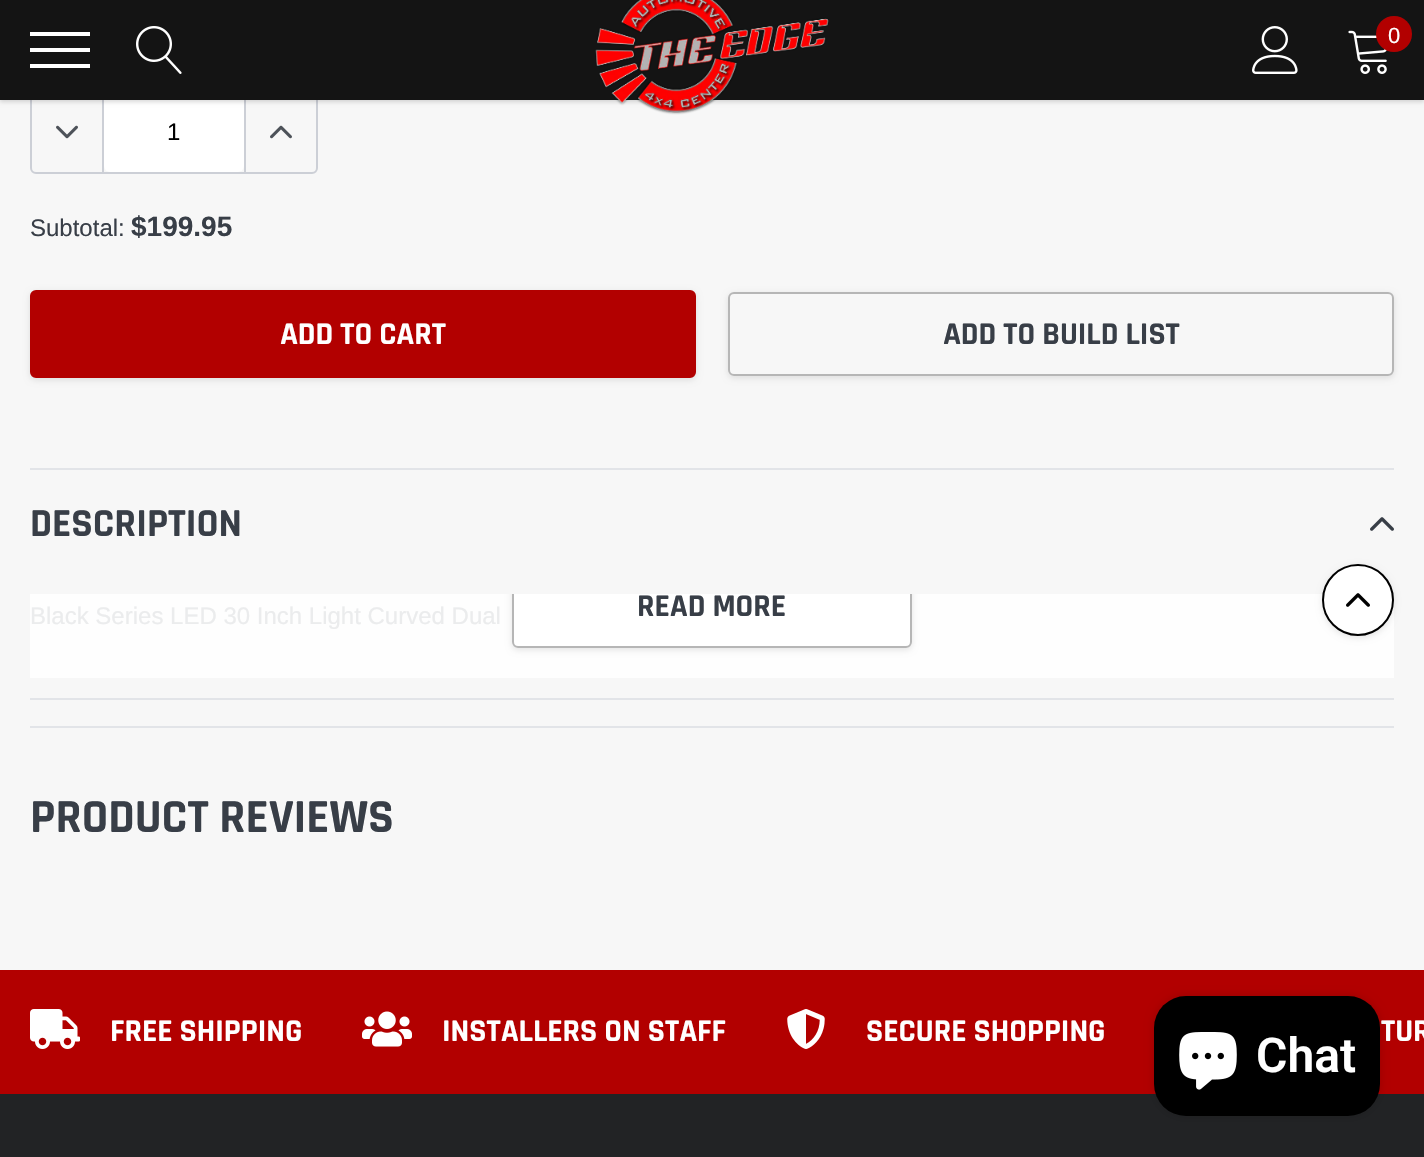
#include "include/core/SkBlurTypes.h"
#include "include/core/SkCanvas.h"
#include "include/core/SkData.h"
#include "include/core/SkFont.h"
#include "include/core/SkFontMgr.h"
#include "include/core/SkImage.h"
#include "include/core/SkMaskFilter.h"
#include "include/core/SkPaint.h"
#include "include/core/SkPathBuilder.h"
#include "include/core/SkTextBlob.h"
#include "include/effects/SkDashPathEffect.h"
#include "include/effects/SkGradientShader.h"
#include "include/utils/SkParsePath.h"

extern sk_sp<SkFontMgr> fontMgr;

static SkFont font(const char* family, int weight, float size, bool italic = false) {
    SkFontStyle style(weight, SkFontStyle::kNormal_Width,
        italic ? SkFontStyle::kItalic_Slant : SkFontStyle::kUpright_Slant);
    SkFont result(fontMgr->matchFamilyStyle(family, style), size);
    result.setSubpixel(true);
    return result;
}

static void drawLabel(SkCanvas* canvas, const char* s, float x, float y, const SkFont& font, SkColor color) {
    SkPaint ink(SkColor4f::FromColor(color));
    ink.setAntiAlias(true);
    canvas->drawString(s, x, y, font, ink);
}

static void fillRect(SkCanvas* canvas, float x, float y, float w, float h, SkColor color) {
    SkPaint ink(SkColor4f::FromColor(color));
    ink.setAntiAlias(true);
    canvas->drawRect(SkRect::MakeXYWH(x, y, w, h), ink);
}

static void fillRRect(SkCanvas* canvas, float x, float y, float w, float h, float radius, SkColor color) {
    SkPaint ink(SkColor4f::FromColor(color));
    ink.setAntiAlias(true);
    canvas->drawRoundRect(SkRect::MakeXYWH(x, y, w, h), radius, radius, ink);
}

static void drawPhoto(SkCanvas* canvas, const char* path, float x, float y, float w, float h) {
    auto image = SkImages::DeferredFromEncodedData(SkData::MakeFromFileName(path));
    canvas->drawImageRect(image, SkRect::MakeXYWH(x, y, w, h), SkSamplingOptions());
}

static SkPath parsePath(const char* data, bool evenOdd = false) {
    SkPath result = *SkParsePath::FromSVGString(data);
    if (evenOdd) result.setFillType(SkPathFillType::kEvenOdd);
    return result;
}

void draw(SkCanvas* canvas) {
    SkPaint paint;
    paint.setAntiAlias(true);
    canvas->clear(0xFFF7F7F7);
    fillRect(canvas, 30, 594, 1364, 84, 0xFFFEFEFE);
    paint.setStroke(true);
    paint.setStrokeWidth(2);
    paint.setColor(0xFFCCCFD6);
    canvas->drawRoundRect(SkRect::MakeXYWH(31, 91, 286, 82), 5, 5, paint);
    fillRect(canvas, 102, 92, 2, 80, 0xFFCCCFD6);
    fillRRect(canvas, 104, 92, 140, 80, 6, 0xFFFFFFFF);
    fillRect(canvas, 244, 92, 2, 80, 0xFFCCCFD6);
    paint.setStroke(false);
    paint.setColor(0x26000000);
    paint.setMaskFilter(SkMaskFilter::MakeBlur(kNormal_SkBlurStyle, 2));
    canvas->drawRect(SkRect::MakeXYWH(0, 2, 1424, 100), paint);
    paint.setMaskFilter(nullptr);
    fillRect(canvas, 0, 0, 1424, 100, 0xFF141414);
    fillRect(canvas, 30, 48, 60, 4, 0xFFFFFFFF);
    fillRect(canvas, 30, 32, 60, 4, 0xFFFFFFFF);
    fillRect(canvas, 30, 64, 60, 4, 0xFFFFFFFF);
    drawPhoto(canvas, "assets/img1.png", 136, 26, 46, 48);
    drawPhoto(canvas, "assets/img2.png", 595, 0, 234, 115);
    drawPhoto(canvas, "assets/img3.png", 1252, 26, 46, 48);
    drawPhoto(canvas, "assets/img4.png", 1348, 30, 39, 44);
    paint.setColor(0xFFB20000);
    canvas->drawCircle(1394, 34, 18, paint);
    SkFont font1 = font("Arimo", 400, 22);
    drawLabel(canvas, "0", 1388, 43, font1, 0xFFFFFFFF);
    drawPhoto(canvas, "assets/img5.png", 56, 125, 22, 14);
    SkFont font2 = font("Arimo", 400, 24);
    drawLabel(canvas, "1", 167, 140, font2, 0xFF000000);
    drawPhoto(canvas, "assets/img6.png", 270, 125, 22, 14);
    drawLabel(canvas, "Subtotal:", 30, 236, font2, 0xFF383E47);
    SkFont font3 = font("Arimo", 700, 28);
    drawLabel(canvas, "$199.95", 131, 236, font3, 0xFF383E47);
    paint.setColor(0x1A000000);
    paint.setMaskFilter(SkMaskFilter::MakeBlur(kNormal_SkBlurStyle, 3));
    canvas->drawRoundRect(SkRect::MakeXYWH(30, 292, 666, 88), 6, 6, paint);
    paint.setMaskFilter(nullptr);
    paint.setColor(0xFFB20000);
    canvas->drawRoundRect(SkRect::MakeXYWH(31, 291, 664, 86), 5, 5, paint);
    paint.setStroke(true);
    canvas->drawRoundRect(SkRect::MakeXYWH(31, 291, 664, 86), 5, 5, paint);
    SkFont font4 = font("Rajdhani", 700, 32);
    drawLabel(canvas, "ADD TO CART", 280, 344, font4, 0xFFFFFFFF);
    canvas->save();
    canvas->clipPath(parsePath("M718 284H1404V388H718ZM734 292H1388C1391.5 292 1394 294.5 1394 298V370C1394 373.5 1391.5 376 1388 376H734C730.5 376 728 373.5 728 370V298C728 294.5 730.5 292 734 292Z", true), true);
    paint.setStroke(false);
    paint.setColor(0x1A000000);
    paint.setMaskFilter(SkMaskFilter::MakeBlur(kNormal_SkBlurStyle, 3));
    canvas->drawRoundRect(SkRect::MakeXYWH(728, 294, 666, 84), 6, 6, paint);
    paint.setMaskFilter(nullptr);
    canvas->restore();
    paint.setStroke(true);
    paint.setColor(0xFFB6B6B6);
    canvas->drawRoundRect(SkRect::MakeXYWH(729, 293, 664, 82), 5, 5, paint);
    drawLabel(canvas, "ADD TO BUILD LIST", 943, 344, font4, 0xFF383E47);
    fillRect(canvas, 30, 698, 1364, 2, 0xFFE2E4E8);
    fillRect(canvas, 30, 468, 1364, 2, 0xFFE2E4E8);
    SkFont font5 = font("Rajdhani", 700, 40);
    drawLabel(canvas, "DESCRIPTION", 30, 536, font5, 0xFF383E47);
    drawPhoto(canvas, "assets/img7.png", 1370, 517, 24, 14);
    drawLabel(canvas, "Black Series LED 30 Inch Light Curved Dual", 30, 624, font2, 0xFFEBECED);
    canvas->save();
    canvas->clipRect(SkRect::MakeXYWH(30, 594, 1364, 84));
    paint.setStroke(false);
    paint.setColor(0x1A000000);
    paint.setMaskFilter(SkMaskFilter::MakeBlur(kNormal_SkBlurStyle, 3));
    canvas->drawRoundRect(SkRect::MakeXYWH(512, 566, 400, 84), 6, 6, paint);
    paint.setMaskFilter(nullptr);
    canvas->restore();
    paint.setColor(0xFFFFFFFF);
    canvas->drawPath(parsePath("M512 594H912V642C912 645.5 909.5 648 906 648H518C514.5 648 512 645.5 512 642Z"), paint);
    canvas->save();
    canvas->clipRect(SkRect::MakeXYWH(30, 594, 1364, 84));
    paint.setStroke(true);
    paint.setColor(0xFFB6B6B6);
    canvas->drawRoundRect(SkRect::MakeXYWH(513, 565, 398, 82), 5, 5, paint);
    canvas->restore();
    drawLabel(canvas, "READ MORE", 637, 616, font4, 0xFF383E47);
    fillRect(canvas, 30, 726, 1364, 2, 0xFFE2E4E8);
    SkFont font6 = font("Rajdhani", 700, 48);
    drawLabel(canvas, "PRODUCT REVIEWS", 30, 832, font6, 0xFF383E47);
    paint.setStroke(false);
    paint.setColor(0x1A000000);
    paint.setMaskFilter(SkMaskFilter::MakeBlur(kNormal_SkBlurStyle, 3));
    canvas->drawRoundRect(SkRect::MakeXYWH(1322, 566, 72, 72), 36, 36, paint);
    paint.setMaskFilter(nullptr);
    paint.setColor(0xFFFFFFFF);
    canvas->drawCircle(1358, 600, 35, paint);
    paint.setStroke(true);
    paint.setColor(0xFF000000);
    canvas->drawCircle(1358, 600, 35, paint);
    drawPhoto(canvas, "assets/img8.png", 1346, 593, 24, 14);
    fillRect(canvas, 0, 970, 1424, 124, 0xFFB20000);
    drawPhoto(canvas, "assets/img9.png", 30, 1009, 50, 40);
    drawLabel(canvas, "FREE SHIPPING", 110, 1041, font4, 0xFFFFFFFF);
    drawPhoto(canvas, "assets/img10.png", 362, 1011, 50, 36);
    drawLabel(canvas, "INSTALLERS ON STAFF", 442, 1041, font4, 0xFFFFFFFF);
    drawPhoto(canvas, "assets/img11.png", 787, 1009, 38, 40);
    drawLabel(canvas, "SECURE SHOPPING", 866, 1041, font4, 0xFFFFFFFF);
    drawLabel(canvas, "TUR", 1381, 1041, font4, 0xFFFFFFFF);
    fillRect(canvas, 0, 1094, 1424, 63, 0xFF222325);
    paint.setStroke(false);
    paint.setColor(0x26000000);
    paint.setMaskFilter(SkMaskFilter::MakeBlur(kNormal_SkBlurStyle, 5));
    canvas->drawRoundRect(SkRect::MakeXYWH(1154, 996, 226, 120), 32, 32, paint);
    paint.setMaskFilter(nullptr);
    fillRRect(canvas, 1154, 996, 226, 120, 32, 0xFF000000);
    drawPhoto(canvas, "assets/img12.png", 1179, 1032, 58, 58);
    SkFont font7 = font("Roboto", 600, 48);
    drawLabel(canvas, "Chat", 1256, 1072, font7, 0xFFFFFFFF);
}
